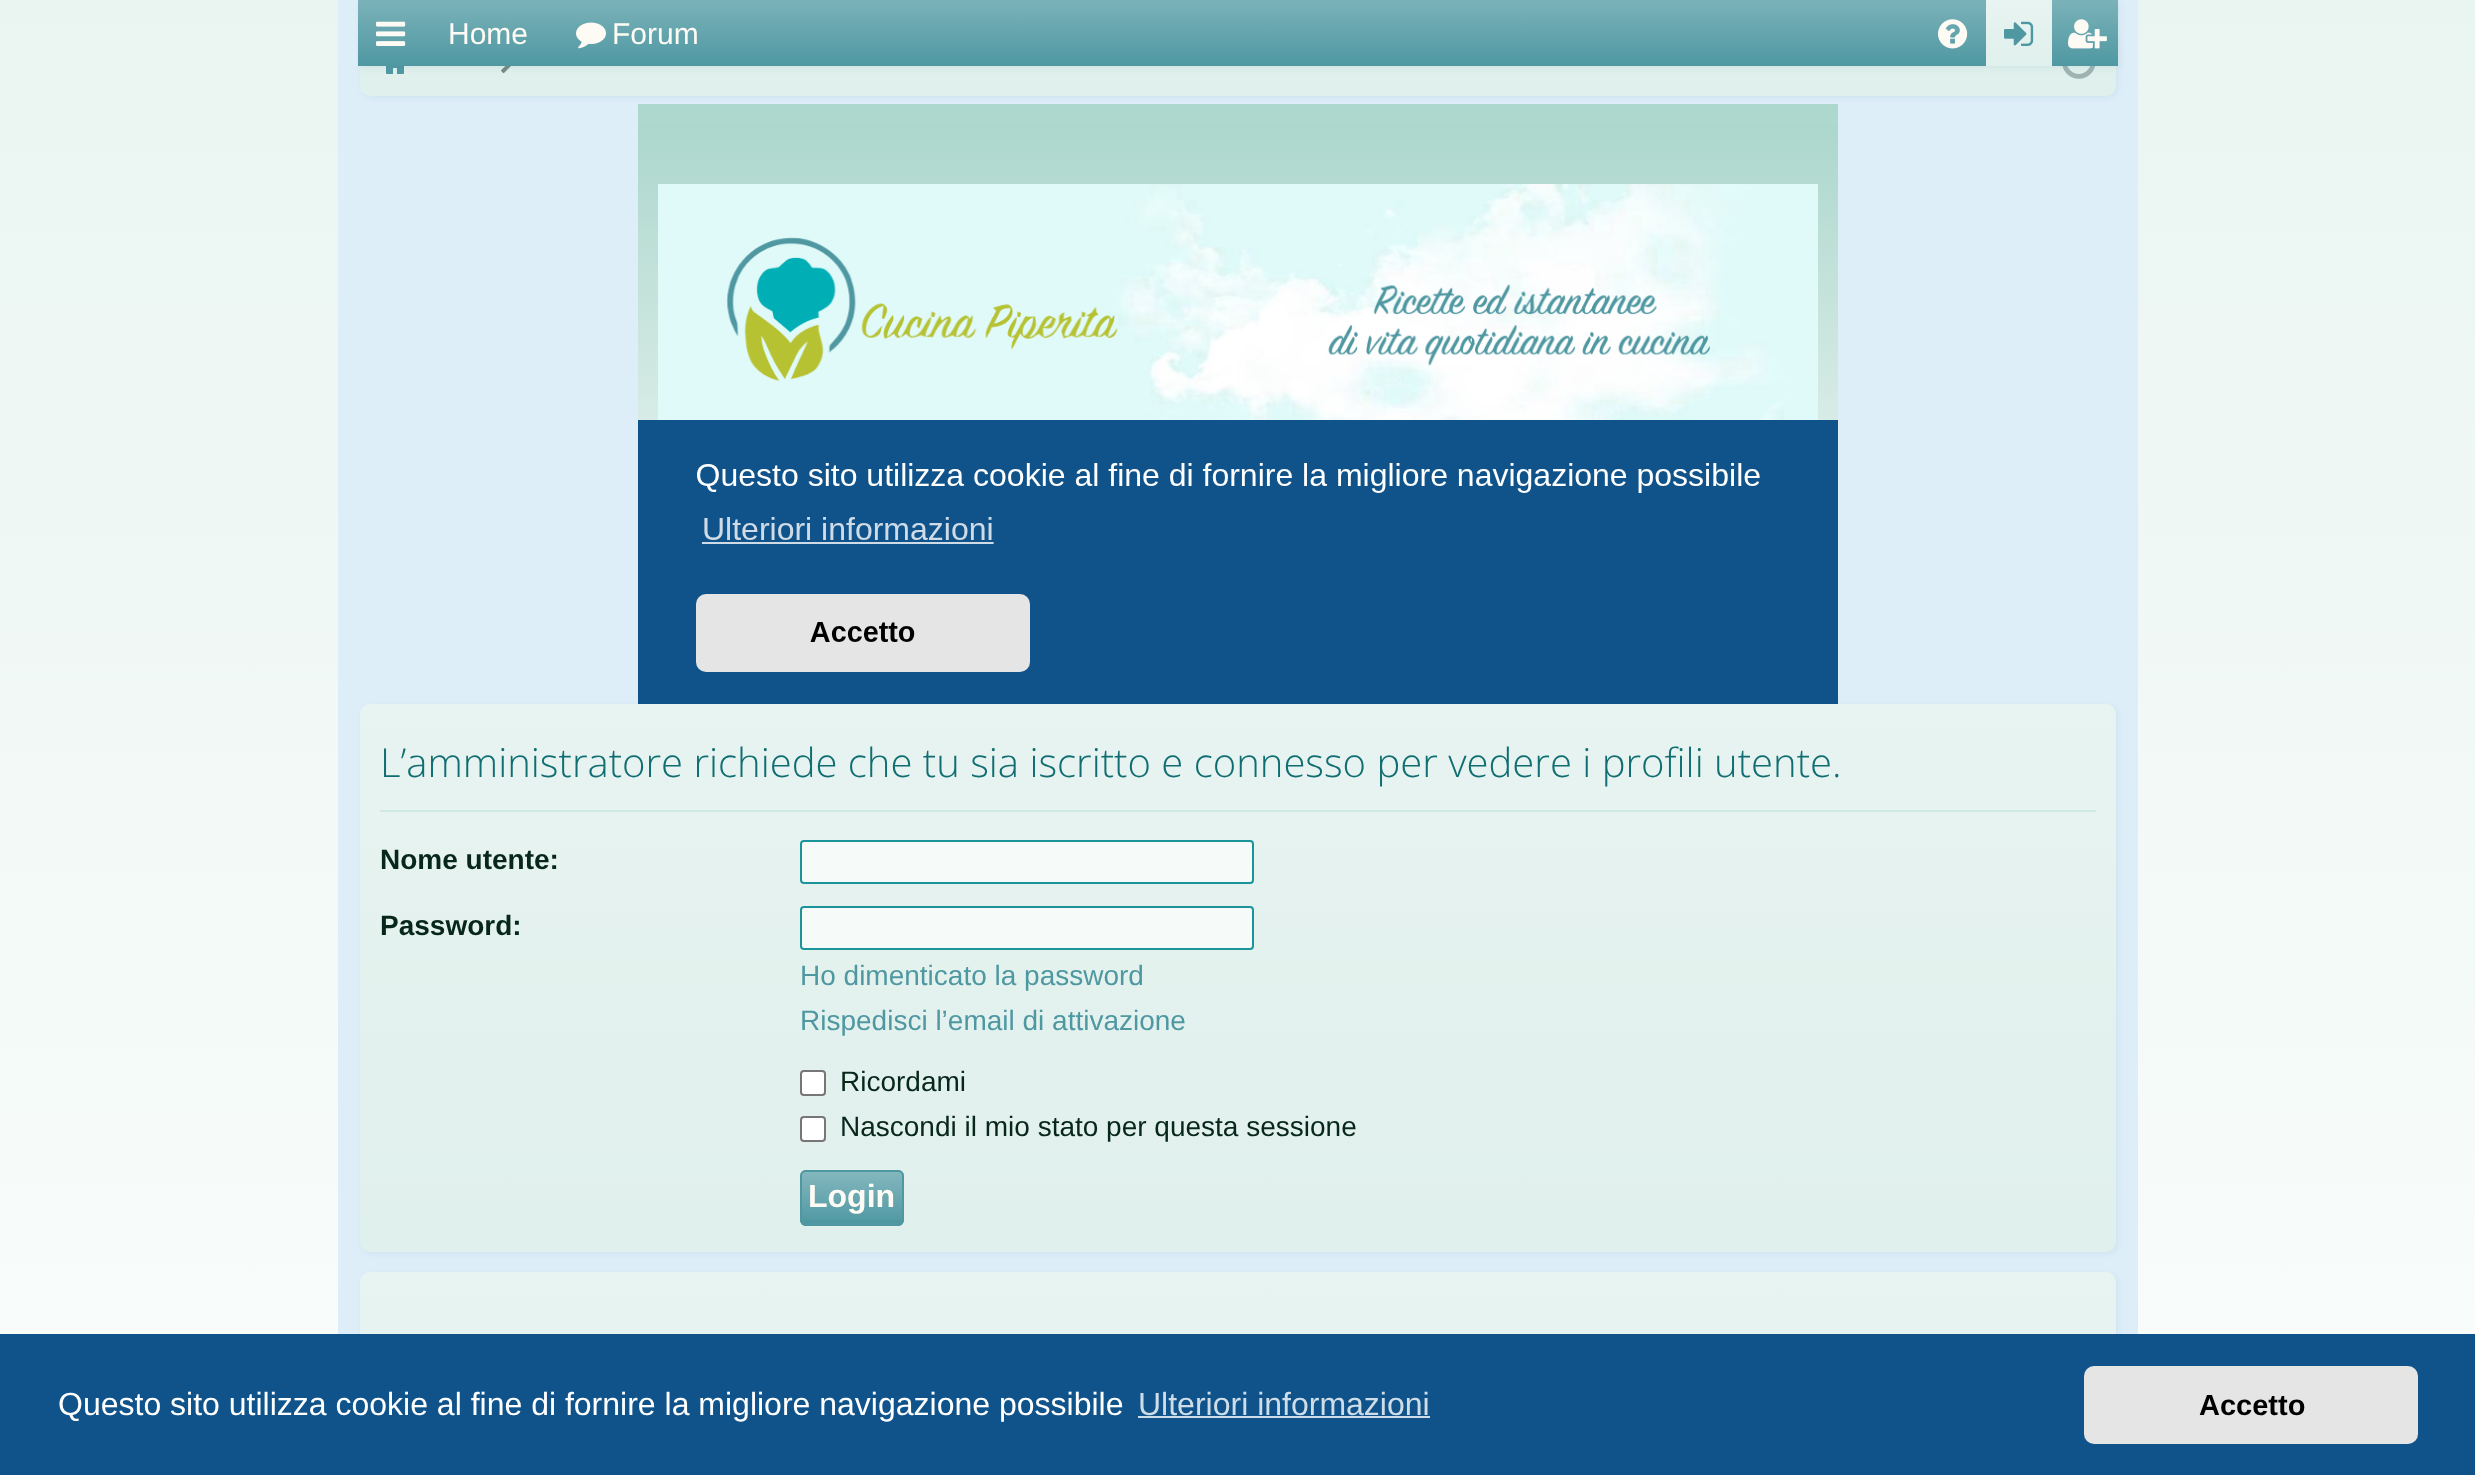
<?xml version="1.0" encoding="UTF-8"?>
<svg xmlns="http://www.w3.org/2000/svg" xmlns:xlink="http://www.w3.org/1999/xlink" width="2475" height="1475">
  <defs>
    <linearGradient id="g1" gradientUnits="userSpaceOnUse" x1="1238" y1="-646" x2="1238" y2="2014"><stop offset="0" stop-color="#acd7cc" /><stop offset="0.15" stop-color="#e7f4f0" /><stop offset="1" stop-color="#ffffff" /></linearGradient>
    <linearGradient id="g2" gradientUnits="userSpaceOnUse" x1="1238" y1="0" x2="1238" y2="66"><stop offset="0" stop-color="#7bb2b9" /><stop offset="1" stop-color="#4f98a2" /></linearGradient>
    <linearGradient id="g3" gradientUnits="userSpaceOnUse" x1="2019" y1="0" x2="2019" y2="66"><stop offset="0" stop-color="#e8f4f1" /><stop offset="1" stop-color="#e0f0ec" /></linearGradient>
    <linearGradient id="g4" gradientUnits="userSpaceOnUse" x1="1238" y1="704" x2="1238" y2="1252"><stop offset="0" stop-color="#ffffff" stop-opacity="0.25" /><stop offset="1" stop-color="#ffffff" stop-opacity="0" /></linearGradient>
    <clipPath id="clip1"><rect x="800" y="1170" width="104" height="56" rx="6" /></clipPath>
    <linearGradient id="g5" gradientUnits="userSpaceOnUse" x1="852" y1="1172" x2="852" y2="1224"><stop offset="0" stop-color="#ffffff" stop-opacity="0.3" /><stop offset="1" stop-color="#ffffff" stop-opacity="0" /></linearGradient>
    <linearGradient id="g6" gradientUnits="userSpaceOnUse" x1="1238" y1="1272" x2="1238" y2="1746"><stop offset="0" stop-color="#ffffff" stop-opacity="0.25" /><stop offset="1" stop-color="#ffffff" stop-opacity="0" /></linearGradient>
  </defs>
  <rect width="100%" height="100%" fill="#ffffff" />
  <rect width="2475" height="1334" fill="url(#g1)" />
  <rect x="338" width="1800" height="1334" fill="#deeef9" />
  <rect x="362" y="32" width="1756" height="66" rx="10" fill="#4f98a2" fill-opacity="0.1" filter="blur(3px)" />
  <rect x="360" y="30" width="1756" height="66" rx="10" fill="#e0f0ec" />
  <image x="386" y="66" width="18" height="8" xlink:href="image1.png" />
  <image x="501" y="66" width="10" height="8" xlink:href="image2.png" />
  <image x="2062" y="66" width="34" height="13" xlink:href="image3.png" />
  <rect x="360" y="2" width="1760" height="66" fill="#4f98a2" fill-opacity="0.1" filter="blur(3px)" />
  <rect x="358" width="1760" height="66" fill="url(#g2)" />
  <image x="376" y="21" width="30" height="25" xlink:href="image4.png" />
  <image x="576" y="22" width="30" height="27" xlink:href="image5.png" />
  <image x="1938" y="19" width="30" height="30" xlink:href="image6.png" />
  <rect x="1986" width="66" height="66" fill="url(#g3)" />
  <image x="2004" y="21" width="30" height="25" xlink:href="image7.png" />
  <image x="2068" y="19" width="39" height="30" xlink:href="image8.png" />
  <rect x="362" y="706" width="1756" height="548" rx="10" fill="#4f98a2" fill-opacity="0.1" filter="blur(3px)" />
  <image x="638" y="104" width="1200" height="600" xlink:href="image9.png" />
  <rect x="360" y="704" width="1756" height="548" rx="10" fill="#e0f0ec" />
  <rect x="360" y="704" width="1756" height="548" rx="10" fill="url(#g4)" />
  <rect x="380" y="810" width="1716" height="2" fill="#cfe8e1" />
  <rect x="801" y="841" width="452" height="42" rx="3" fill="#f6fbf9" stroke="#1b959a" stroke-width="2" />
  <rect x="801" y="907" width="452" height="42" rx="3" fill="#f6fbf9" stroke="#1b959a" stroke-width="2" />
  <rect x="801" y="1071" width="24" height="24" rx="3" fill="#ffffff" stroke="#767676" stroke-width="2" />
  <rect x="801" y="1117" width="24" height="24" rx="3" fill="#ffffff" stroke="#767676" stroke-width="2" />
  <rect x="800" y="1170" width="104" height="56" rx="6" fill="#4f98a2" />
  <g clip-path="url(#clip1)">
    <rect x="800" y="1172" width="104" height="48" fill="url(#g5)" />
  </g>
  <rect x="801" y="1171" width="102" height="54" rx="5" fill="none" stroke="#4f98a2" stroke-width="2" />
  <rect x="362" y="1274" width="1756" height="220" rx="10" fill="#4f98a2" fill-opacity="0.1" filter="blur(3px)" />
  <rect x="360" y="1272" width="1756" height="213" rx="10" fill="#e0f0ec" />
  <rect x="360" y="1272" width="1756" height="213" rx="10" fill="url(#g6)" />
  <rect y="1334" width="2475" height="141" fill="#0f538a" />
  <rect x="1138" y="1416" width="292" height="2" fill="#cfdde8" />
  <rect x="2084" y="1366" width="334" height="78" rx="10" fill="#e5e5e5" />
  <text x="448" y="44" style="font-family: Liberation Sans; font-size: 30px; fill: #fefbf5">Home</text>
  <text x="612" y="44" style="font-family: Liberation Sans; font-size: 30px; fill: #fefbf5">Forum</text>
  <text x="380" y="777" style="font-family: Open Sans; font-size: 40px; font-weight: 300; fill: #106e72">L’amministratore richiede che tu sia iscritto e connesso per vedere i profili utente.</text>
  <text x="380" y="869" style="font-family: Liberation Sans; font-size: 28px; font-weight: bold; fill: #08271b">Nome utente:</text>
  <text x="380" y="935" style="font-family: Liberation Sans; font-size: 28px; font-weight: bold; fill: #08271b">Password:</text>
  <text x="800" y="985" style="font-family: Liberation Sans; font-size: 28px; fill: #4f98a2">Ho dimenticato la password</text>
  <text x="800" y="1030" style="font-family: Liberation Sans; font-size: 28px; fill: #4f98a2">Rispedisci l’email di attivazione</text>
  <text x="840" y="1091" style="font-family: Liberation Sans; font-size: 28px; fill: #08271b">Ricordami</text>
  <text x="840" y="1136" style="font-family: Liberation Sans; font-size: 28px; fill: #08271b">Nascondi il mio stato per questa sessione</text>
  <text x="808" y="1207" style="font-family: Liberation Sans; font-size: 32px; font-weight: bold; fill: #fefbf5">Login</text>
  <text x="58" y="1415" style="font-family: Liberation Sans; font-size: 32px; fill: #ffffff">Questo sito utilizza cookie al fine di fornire la migliore navigazione possibile</text>
  <text x="1138" y="1415" style="font-family: Liberation Sans; font-size: 32px; fill: #cfdde8">Ulteriori informazioni</text>
  <text x="2199" y="1415" style="font-family: Liberation Sans; font-size: 29px; font-weight: bold; fill: #000000">Accetto</text>
</svg>
